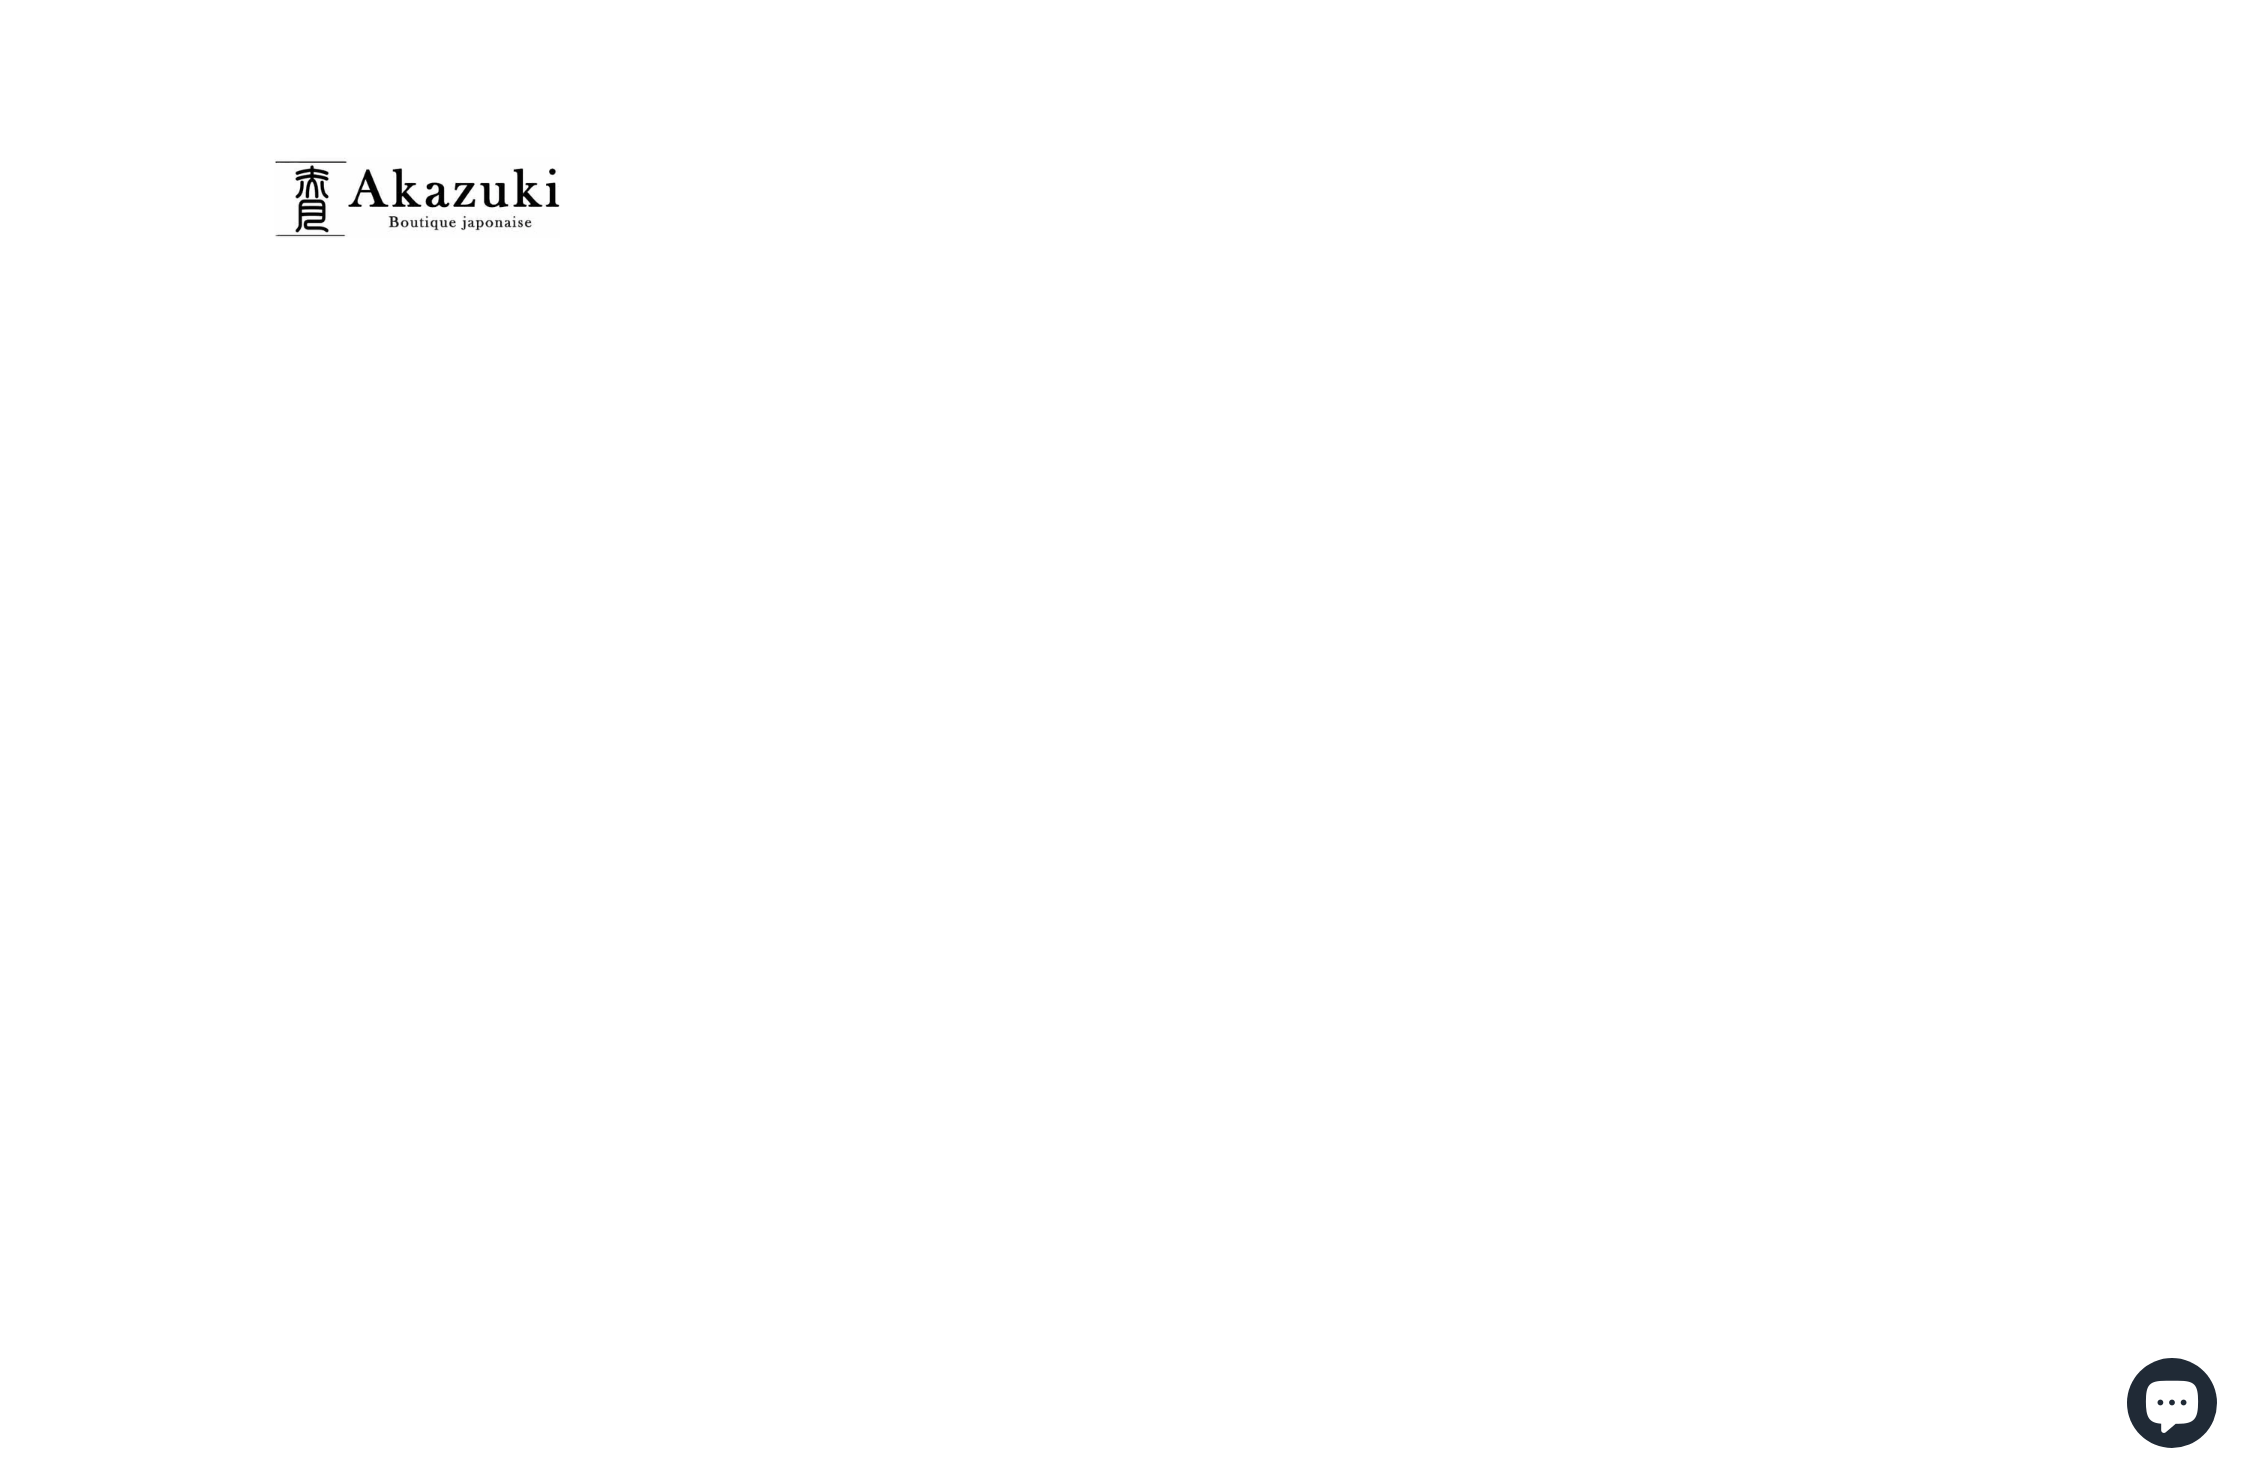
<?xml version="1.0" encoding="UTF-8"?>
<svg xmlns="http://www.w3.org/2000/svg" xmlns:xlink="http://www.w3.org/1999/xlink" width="2249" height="1479">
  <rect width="100%" height="100%" fill="#ffffff" />
  <image x="274" y="157" width="286" height="81" xlink:href="image1.png" />
  <circle cx="2172" cy="1403" r="45" fill="#202a36" />
  <image x="2145" y="1380" width="54" height="53" xlink:href="image2.png" />
</svg>
